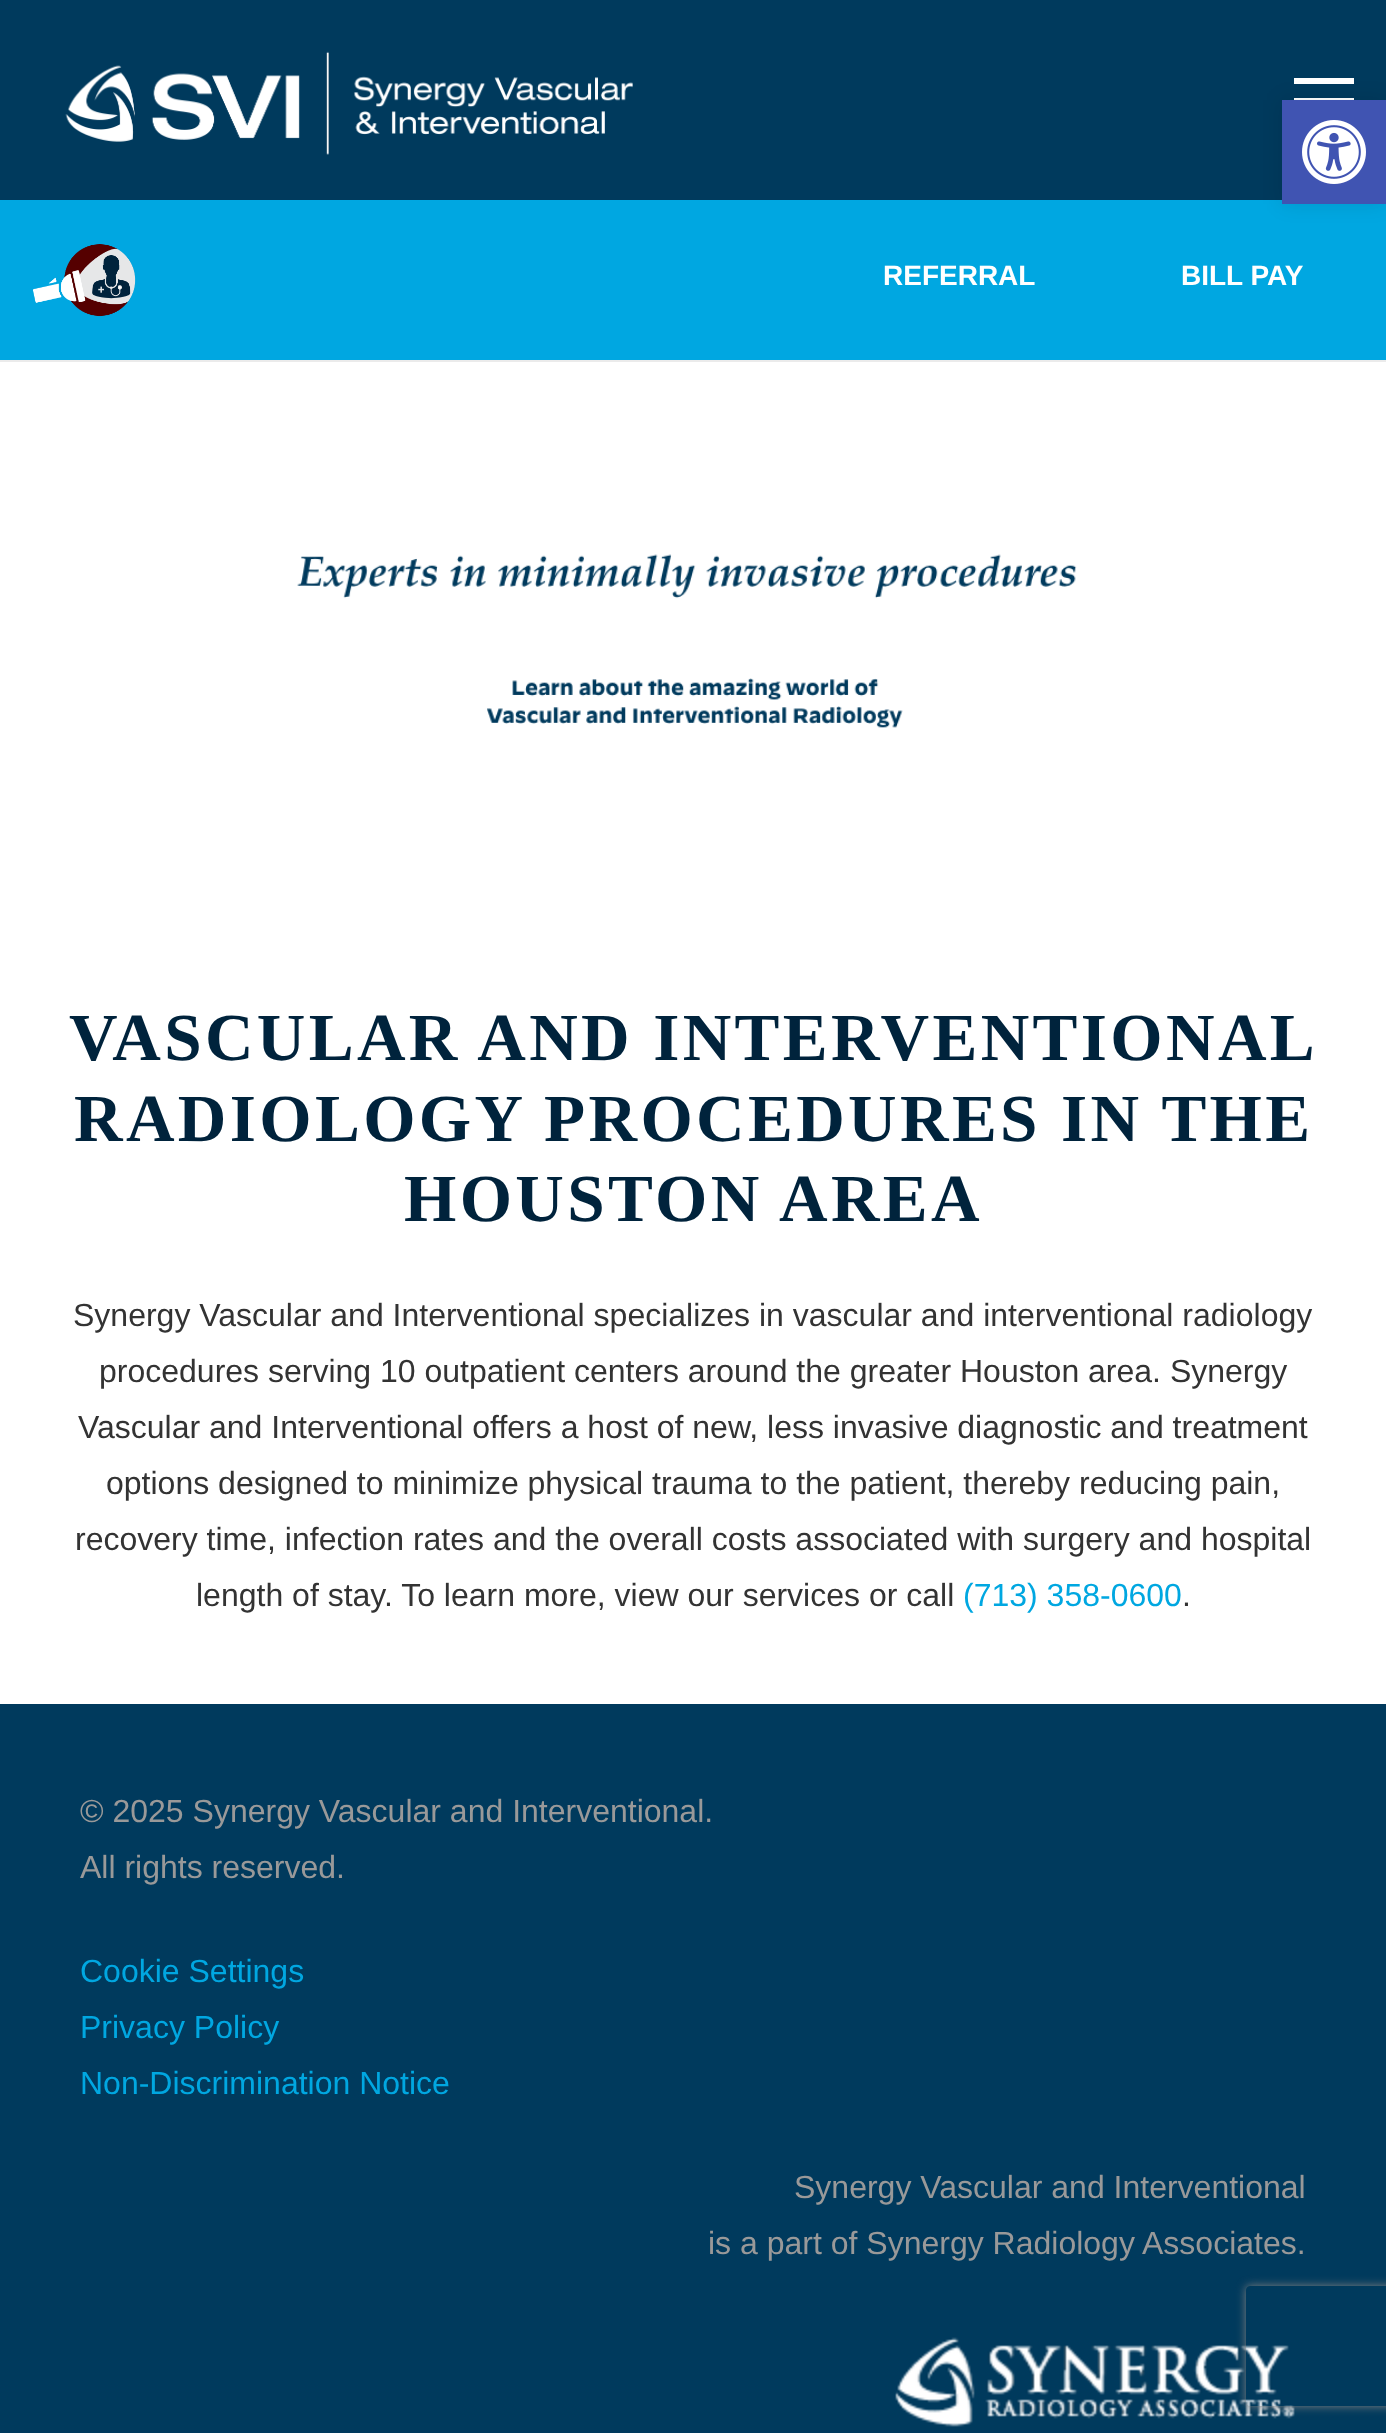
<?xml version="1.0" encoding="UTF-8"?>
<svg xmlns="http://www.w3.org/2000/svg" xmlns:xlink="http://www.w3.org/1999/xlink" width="1386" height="2433">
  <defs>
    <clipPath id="clip1"><path d="M 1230 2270 h 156 v 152 h -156 z m 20 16 h 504 c 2 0 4 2 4 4 v 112 c 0 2 -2 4 -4 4 h -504 c -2 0 -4 -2 -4 -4 v -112 c 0 -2 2 -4 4 -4 z" clip-rule="evenodd" /></clipPath>
  </defs>
  <rect width="100%" height="100%" fill="#ffffff" />
  <rect width="1386" height="200" fill="#003a5d" />
  <rect x="1294" y="98" width="60" height="2" fill="#ffffff" />
  <rect x="1294" y="78" width="60" height="6" fill="#ffffff" />
  <rect y="200" width="1386" height="160" fill="#00a7e1" />
  <rect x="1282" y="100" width="104" height="104" fill="#000000" fill-opacity="0.1" filter="blur(10px)" />
  <rect x="1282" y="100" width="104" height="104" fill="#4054b2" />
  <image x="1302" y="120" width="64" height="64" xlink:href="image1.png" />
  <image x="65" y="51" width="568" height="104" xlink:href="image2.png" />
  <rect y="360" width="1386" height="2" fill="#ebebeb" />
  <image x="32" y="244" width="104" height="73" xlink:href="image3.png" />
  <image x="297" y="554" width="780" height="174" xlink:href="image4.png" />
  <rect y="1704" width="1386" height="729" fill="#003a5d" />
  <image x="895" y="2337" width="400" height="90" xlink:href="image5.png" />
  <g clip-path="url(#clip1)">
    <rect x="1246" y="2286" width="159" height="120" rx="4" fill="#808080" filter="blur(5px)" />
  </g>
  <text x="883" y="285" style="font-family: Liberation Sans; font-size: 28px; font-weight: bold; fill: #ffffff">REFERRAL</text>
  <text x="1181" y="285" style="font-family: Liberation Sans; font-size: 28px; font-weight: bold; fill: #ffffff">BILL PAY</text>
  <text x="69" y="1060" style="font-family: Liberation Serif; font-size: 67.25px; font-weight: bold; letter-spacing: 3.35px; fill: #00233c">VASCULAR AND INTERVENTIONAL</text>
  <text x="74" y="1141" style="font-family: Liberation Serif; font-size: 67.25px; font-weight: bold; letter-spacing: 3.35px; fill: #00233c">RADIOLOGY PROCEDURES IN THE</text>
  <text x="404" y="1221" style="font-family: Liberation Serif; font-size: 67.25px; font-weight: bold; letter-spacing: 3.35px; fill: #00233c">HOUSTON AREA</text>
  <text x="73" y="1326" style="font-family: Liberation Sans; font-size: 32px; fill: #333333">Synergy Vascular and Interventional specializes in vascular and interventional radiology</text>
  <text x="99" y="1382" style="font-family: Liberation Sans; font-size: 32px; fill: #333333">procedures serving 10 outpatient centers around the greater Houston area. Synergy</text>
  <text x="78" y="1438" style="font-family: Liberation Sans; font-size: 32px; fill: #333333">Vascular and Interventional offers a host of new, less invasive diagnostic and treatment</text>
  <text x="106" y="1494" style="font-family: Liberation Sans; font-size: 32px; fill: #333333">options designed to minimize physical trauma to the patient, thereby reducing pain,</text>
  <text x="75" y="1550" style="font-family: Liberation Sans; font-size: 32px; fill: #333333">recovery time, infection rates and the overall costs associated with surgery and hospital</text>
  <text x="196" y="1606" style="font-family: Liberation Sans; font-size: 32px; fill: #333333">length of stay. To learn more, view our services or call</text>
  <text x="963" y="1606" style="font-family: Liberation Sans; font-size: 32px; fill: #00a7e1">(713) 358-0600</text>
  <text x="1182" y="1606" style="font-family: Liberation Sans; font-size: 32px; fill: #333333">.</text>
  <text x="80" y="1822" style="font-family: Liberation Sans; font-size: 32px; fill: #999999">© 2025 Synergy Vascular and Interventional.</text>
  <text x="80" y="1878" style="font-family: Liberation Sans; font-size: 32px; fill: #999999">All rights reserved.</text>
  <text x="80" y="1982" style="font-family: Liberation Sans; font-size: 32px; fill: #00a7e1">Cookie Settings</text>
  <text x="80" y="2038" style="font-family: Liberation Sans; font-size: 32px; fill: #00a7e1">Privacy Policy</text>
  <text x="80" y="2094" style="font-family: Liberation Sans; font-size: 32px; fill: #00a7e1">Non-Discrimination Notice</text>
  <text x="794" y="2198" style="font-family: Liberation Sans; font-size: 32px; fill: #999999">Synergy Vascular and Interventional</text>
  <text x="708" y="2254" style="font-family: Liberation Sans; font-size: 32px; fill: #999999">is a part of Synergy Radiology Associates.</text>
</svg>
